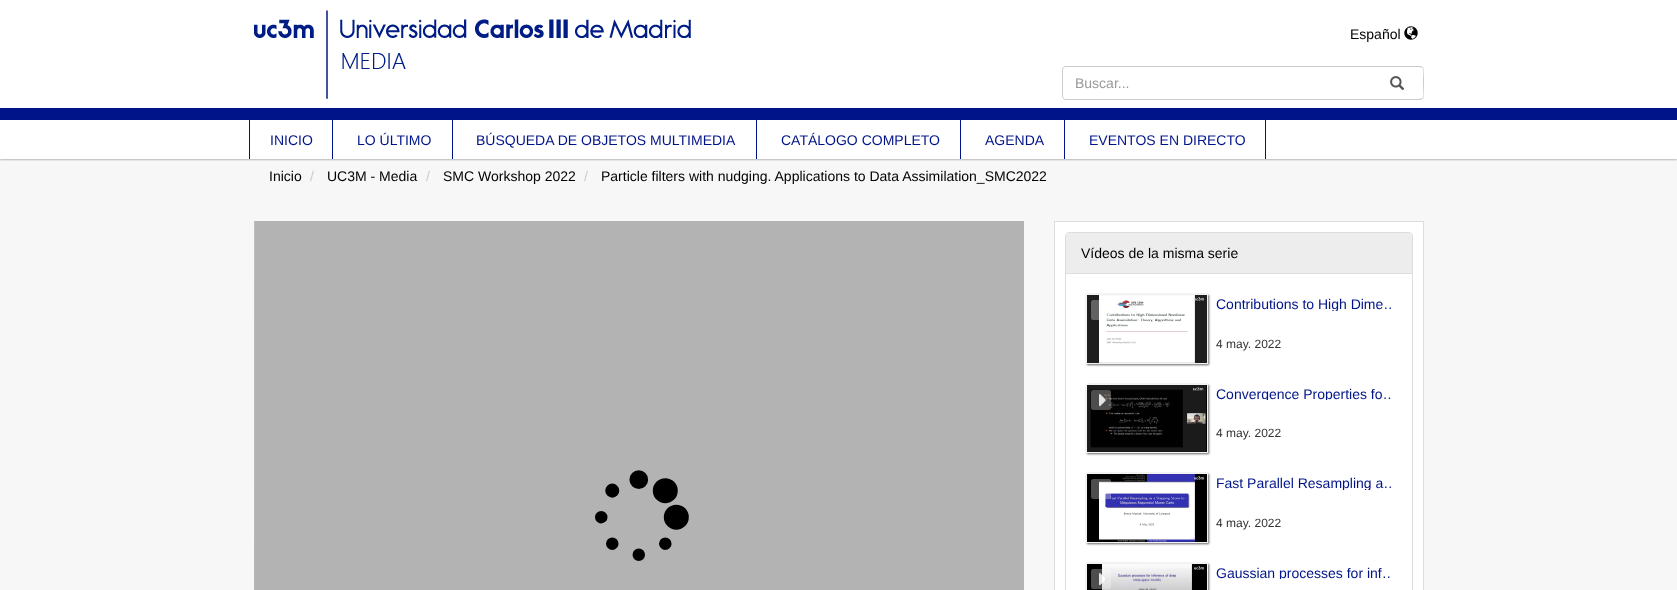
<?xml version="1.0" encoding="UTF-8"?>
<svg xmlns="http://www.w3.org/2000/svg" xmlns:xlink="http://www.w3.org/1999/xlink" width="1677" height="590">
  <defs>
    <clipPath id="clip1"><rect x="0" y="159" width="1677" height="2" /></clipPath>
    <clipPath id="clip2"><rect x="1216" y="294" width="176" height="17" /></clipPath>
    <clipPath id="clip3"><rect x="1216" y="384" width="176" height="16" /></clipPath>
    <clipPath id="clip4"><rect x="1216" y="473" width="176" height="17" /></clipPath>
    <clipPath id="clip5"><rect x="1216" y="563" width="176" height="16" /></clipPath>
  </defs>
  <rect width="100%" height="100%" fill="#ffffff" />
  <image x="254" y="10" width="437" height="89" xlink:href="image1.png" />
  <image x="1404" y="26" width="14" height="14" xlink:href="image2.png" />
  <path d="M 1066 66 h 306 v 34 h -306 c -2 0 -4 -2 -4 -4 v -26 c 0 -2 2 -4 4 -4 z m 0 1 h 306 v 32 h -306 c -2 0 -3 -1 -3 -3 v -26 c 0 -2 1 -3 3 -3 z" fill="#cccccc" fill-rule="evenodd" />
  <path d="M 1372 66 h 48 c 2 0 4 2 4 4 v 26 c 0 2 -2 4 -4 4 h -48 z m 0 1 h 40 c 15 0 11 0 11 16 c 0 16 4 16 -11 16 h -40 z" fill="#cccccc" fill-rule="evenodd" />
  <image x="1390" y="76" width="15" height="14" xlink:href="image3.png" />
  <rect x="-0.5" y="119.5" width="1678" height="40" fill="none" stroke="#ebebeb" />
  <g clip-path="url(#clip1)">
    <rect y="122" width="1677" height="39" fill="#000000" fill-opacity="0.16" filter="blur(1px)" />
  </g>
  <rect y="108" width="1677" height="12" fill="#001489" />
  <rect x="332" y="120" width="1" height="39" fill="#001489" />
  <rect x="249" y="120" width="1" height="39" fill="#001489" />
  <rect x="452" y="120" width="1" height="39" fill="#001489" />
  <rect x="756" y="120" width="1" height="39" fill="#001489" />
  <rect x="960" y="120" width="1" height="39" fill="#001489" />
  <rect x="1064" y="120" width="1" height="39" fill="#001489" />
  <rect x="1265" y="120" width="1" height="39" fill="#001489" />
  <rect y="161" width="1677" height="429" fill="#f7f7f7" />
  <image x="254" y="221" width="770" height="369" xlink:href="image4.png" />
  <rect x="1054.5" y="221.5" width="369" height="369" fill="#ffffff" stroke="#dddddd" />
  <rect x="1065.5" y="232.5" width="347" height="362" rx="3.5" fill="none" stroke="#dddddd" />
  <path d="M 1069 233 h 340 c 1.5 0 3 1.5 3 3 v 38 h -346 v -38 c 0 -1.5 1.5 -3 3 -3 z" fill="#ededed" />
  <rect x="1066" y="273" width="346" height="1" fill="#dddddd" />
  <rect x="1087" y="295" width="122" height="70" fill="#666666" filter="blur(1px)" />
  <rect x="1086" y="294" width="122" height="70" fill="#f3f3f3" />
  <image x="1087" y="295" width="120" height="68" xlink:href="image5.png" />
  <image x="1091" y="300" width="20" height="20" xlink:href="image6.png" />
  <rect x="1087" y="385" width="122" height="69" fill="#666666" filter="blur(1px)" />
  <rect x="1086" y="384" width="122" height="69" fill="#f3f3f3" />
  <image x="1087" y="385" width="119" height="67" xlink:href="image7.png" />
  <rect x="1206" y="385" width="1" height="67" fill="#000000" />
  <image x="1091" y="390" width="20" height="20" xlink:href="image8.png" />
  <rect x="1087" y="474" width="122" height="70" fill="#666666" filter="blur(1px)" />
  <rect x="1086" y="473" width="122" height="70" fill="#f3f3f3" />
  <rect x="1087" y="474" width="120" height="68" fill="#000000" />
  <image x="1099" y="474" width="106" height="68" xlink:href="image9.png" />
  <image x="1091" y="479" width="20" height="20" xlink:href="image10.png" />
  <rect x="1087" y="564" width="122" height="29" fill="#666666" filter="blur(1px)" />
  <rect x="1086" y="563" width="122" height="27" fill="#f3f3f3" />
  <rect x="1087" y="564" width="120" height="26" fill="#000000" />
  <image x="1102" y="564" width="103" height="26" xlink:href="image12.png" />
  <image x="1091" y="569" width="20" height="20" xlink:href="image11.png" />
  <text x="1350" y="39" style="font-family: Liberation Sans; font-size: 14px; fill: #000000">Español</text>
  <text x="1075" y="88" style="font-family: Liberation Sans; font-size: 14px; fill: #999999">Buscar...</text>
  <text x="270" y="145" style="font-family: Liberation Sans; font-size: 14px; fill: #001489">INICIO</text>
  <text x="357" y="145" style="font-family: Liberation Sans; font-size: 14px; fill: #001489">LO ÚLTIMO</text>
  <text x="476" y="145" style="font-family: Liberation Sans; font-size: 14px; fill: #001489">BÚSQUEDA DE OBJETOS MULTIMEDIA</text>
  <text x="781" y="145" style="font-family: Liberation Sans; font-size: 14px; fill: #001489">CATÁLOGO COMPLETO</text>
  <text x="985" y="145" style="font-family: Liberation Sans; font-size: 14px; fill: #001489">AGENDA</text>
  <text x="1089" y="145" style="font-family: Liberation Sans; font-size: 14px; fill: #001489">EVENTOS EN DIRECTO</text>
  <text x="269" y="181" style="font-family: Liberation Sans; font-size: 14px; fill: #000000">Inicio</text>
  <text x="310" y="181" style="font-family: Liberation Sans; font-size: 14px; fill: #cccccc">/</text>
  <text x="327" y="181" style="font-family: Liberation Sans; font-size: 14px; fill: #000000">UC3M - Media</text>
  <text x="426" y="181" style="font-family: Liberation Sans; font-size: 14px; fill: #cccccc">/</text>
  <text x="443" y="181" style="font-family: Liberation Sans; font-size: 14px; fill: #000000">SMC Workshop 2022</text>
  <text x="584" y="181" style="font-family: Liberation Sans; font-size: 14px; fill: #cccccc">/</text>
  <text x="601" y="181" style="font-family: Liberation Sans; font-size: 14px; fill: #000000">Particle filters with nudging. Applications to Data Assimilation_SMC2022</text>
  <text x="1081" y="258" style="font-family: Liberation Sans; font-size: 14px; fill: #000000">Vídeos de la misma serie</text>
  <g clip-path="url(#clip2)">
    <text x="1216" y="309" style="font-family: Liberation Sans; font-size: 14px; fill: #001489">Contributions to High Dime…</text>
  </g>
  <text x="1216" y="348" style="font-family: Liberation Sans; font-size: 12px; fill: #333333">4 may. 2022</text>
  <g clip-path="url(#clip3)">
    <text x="1216" y="399" style="font-family: Liberation Sans; font-size: 14px; fill: #001489">Convergence Properties fo…</text>
  </g>
  <text x="1216" y="437" style="font-family: Liberation Sans; font-size: 12px; fill: #333333">4 may. 2022</text>
  <g clip-path="url(#clip4)">
    <text x="1216" y="488" style="font-family: Liberation Sans; font-size: 14px; fill: #001489">Fast Parallel Resampling a…</text>
  </g>
  <text x="1216" y="527" style="font-family: Liberation Sans; font-size: 12px; fill: #333333">4 may. 2022</text>
  <g clip-path="url(#clip5)">
    <text x="1216" y="578" style="font-family: Liberation Sans; font-size: 14px; fill: #001489">Gaussian processes for inf…</text>
  </g>
</svg>
